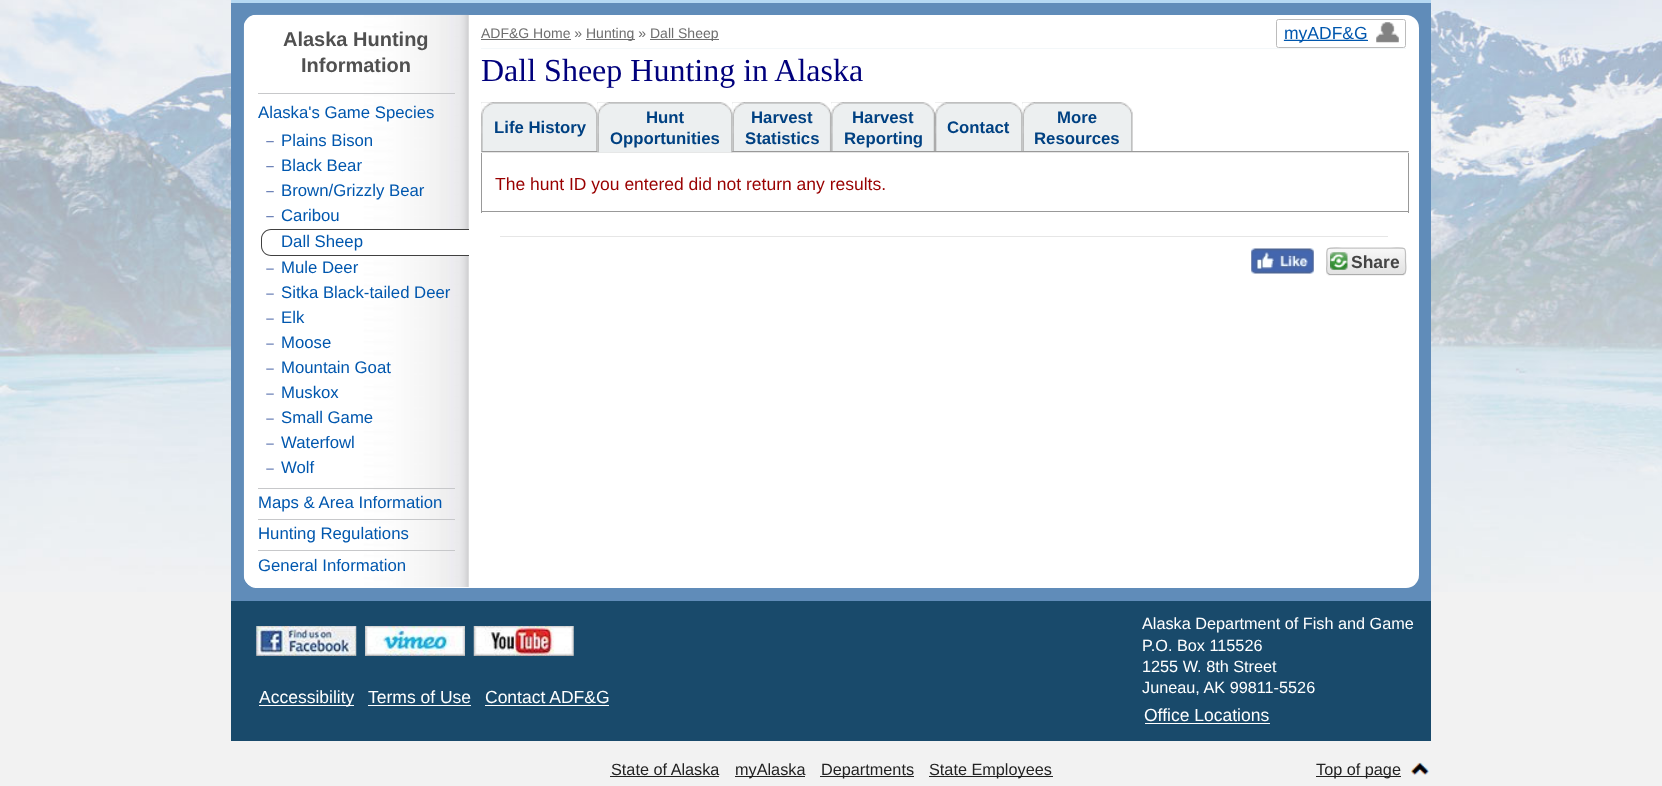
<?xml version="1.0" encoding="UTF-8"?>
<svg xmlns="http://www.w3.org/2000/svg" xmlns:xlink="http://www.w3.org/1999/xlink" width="1662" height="786">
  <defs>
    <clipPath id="clip1"><rect x="1326" y="248" width="80" height="27" rx="4" /></clipPath>
    <linearGradient id="g1" gradientUnits="userSpaceOnUse" x1="1366" y1="224" x2="1366" y2="249"><stop offset="0" stop-color="#f7f7f7" /><stop offset="1" stop-color="#e2e2e2" /></linearGradient>
    <linearGradient id="g2" gradientUnits="userSpaceOnUse" x1="1366" y1="249" x2="1366" y2="274"><stop offset="0" stop-color="#f7f7f7" /><stop offset="1" stop-color="#e2e2e2" /></linearGradient>
    <linearGradient id="g3" gradientUnits="userSpaceOnUse" x1="1366" y1="274" x2="1366" y2="299"><stop offset="0" stop-color="#f7f7f7" /><stop offset="1" stop-color="#e2e2e2" /></linearGradient>
  </defs>
  <rect width="100%" height="100%" fill="#f2f2f2" />
  <image x="0" y="0" width="1662" height="592" xlink:href="image1.png" />
  <rect x="231" width="1200" height="3" fill="#b5d8f2" />
  <rect x="231" y="3" width="1200" height="598" fill="#608cb9" />
  <rect x="244" y="15" width="1175" height="573" rx="13" fill="#ffffff" />
  <image x="243" y="14" width="226" height="573" xlink:href="image2.png" />
  <rect x="258" y="93" width="197" height="1" fill="#c7c8ca" />
  <image x="266" y="141" width="8" height="2" xlink:href="image3.png" />
  <image x="266" y="166" width="8" height="2" xlink:href="image3.png" />
  <image x="266" y="191" width="8" height="2" xlink:href="image3.png" />
  <image x="266" y="216" width="8" height="2" xlink:href="image3.png" />
  <path d="M 272 230 h 197 v 25 h -197 c -5 0 -9 -4 -9 -9 v -7 c 0 -5 4 -9 9 -9 z" fill="#ffffff" />
  <path d="M 271 229 h 198 v 27 h -198 c -5 0 -10 -4 -10 -10 v -7 c 0 -6 5 -10 10 -10 z m 0 1 h 198 v 25 h -198 c -5 0 -9 -4 -9 -9 v -7 c 0 -5 4 -9 9 -9 z" fill="#404040" fill-rule="evenodd" />
  <image x="266" y="268" width="8" height="2" xlink:href="image4.png" />
  <image x="266" y="293" width="8" height="2" xlink:href="image4.png" />
  <image x="266" y="318" width="8" height="2" xlink:href="image4.png" />
  <image x="266" y="343" width="8" height="2" xlink:href="image4.png" />
  <image x="266" y="368" width="8" height="2" xlink:href="image4.png" />
  <image x="266" y="393" width="8" height="2" xlink:href="image4.png" />
  <image x="266" y="418" width="8" height="2" xlink:href="image4.png" />
  <image x="266" y="443" width="8" height="2" xlink:href="image4.png" />
  <image x="266" y="468" width="8" height="2" xlink:href="image4.png" />
  <rect x="258" y="488" width="197" height="1" fill="#c7c8ca" />
  <rect x="258" y="519" width="197" height="1" fill="#c7c8ca" />
  <rect x="258" y="550" width="197" height="1" fill="#c7c8ca" />
  <rect x="481" y="48" width="925" height="1" fill="#f3f7f9" />
  <rect x="481" y="39" width="90" height="1" fill="#6e6e6e" />
  <rect x="586" y="39" width="49" height="1" fill="#6e6e6e" />
  <rect x="650" y="39" width="69" height="1" fill="#6e6e6e" />
  <rect x="1276.5" y="19.5" width="129" height="28" rx="2" fill="none" stroke="#bcbcbc" />
  <image x="1283" y="22" width="116" height="21" xlink:href="image5.png" />
  <rect x="1300" y="40" width="68" height="1" fill="#0057ae" />
  <image x="481" y="151" width="928" height="2" xlink:href="image6.png" />
  <image x="481" y="102" width="117" height="49" xlink:href="image7.png" />
  <image x="481" y="102" width="13" height="49" xlink:href="image8.png" />
  <image x="597" y="102" width="136" height="51" xlink:href="image9.png" />
  <image x="597" y="102" width="13" height="51" xlink:href="image10.png" />
  <image x="732" y="102" width="100" height="49" xlink:href="image11.png" />
  <image x="732" y="102" width="13" height="49" xlink:href="image12.png" />
  <image x="831" y="102" width="104" height="49" xlink:href="image13.png" />
  <image x="831" y="102" width="13" height="49" xlink:href="image14.png" />
  <image x="935" y="102" width="88" height="49" xlink:href="image15.png" />
  <image x="935" y="102" width="12" height="49" xlink:href="image16.png" />
  <image x="1022" y="102" width="111" height="49" xlink:href="image17.png" />
  <image x="1022" y="102" width="13" height="49" xlink:href="image18.png" />
  <rect x="1408" y="153" width="1" height="60" fill="#999999" />
  <rect x="481" y="211" width="928" height="1" fill="#999999" />
  <rect x="481" y="153" width="1" height="60" fill="#999999" />
  <rect x="500" y="236" width="888" height="1" fill="#e6e6e6" />
  <image x="1251" y="248" width="63" height="26" xlink:href="image19.png" />
  <rect x="1326" y="249" width="80" height="27" rx="4" fill="#000000" fill-opacity="0.05" filter="blur(0.5px)" />
  <g clip-path="url(#clip1)">
    <rect x="1326" y="248" width="80" height="1" fill="url(#g1)" />
    <rect x="1326" y="249" width="80" height="25" fill="url(#g2)" />
    <rect x="1326" y="274" width="80" height="1" fill="url(#g3)" />
  </g>
  <path d="M 1404.5 273.5 l -1.5 1 h -73.5 l -1.5 -1" fill="none" stroke="#999999" stroke-opacity="0.8" stroke-width="1.2" />
  <path d="M 1328 273.5 c -2.5 -2 -1 -6.5 -1 -9 c 0 -18.5 -3.5 -16.5 15 -16.5 h 48.5 c 17 0 15 -2.5 15 13 c 0 3 1.5 10.5 -1 12.5" fill="none" stroke="#b3b3b3" stroke-opacity="0.8" stroke-width="1.2" />
  <image x="1330" y="252" width="18" height="18" xlink:href="image20.png" />
  <rect x="231" y="601" width="1200" height="140" fill="#194a6b" />
  <image x="256" y="626" width="101" height="30" xlink:href="image21.png" />
  <image x="365" y="626" width="100" height="30" xlink:href="image22.png" />
  <image x="473" y="626" width="101" height="30" xlink:href="image23.png" />
  <rect x="259" y="705" width="95" height="1" fill="#ffffff" />
  <rect x="368" y="705" width="103" height="1" fill="#ffffff" />
  <rect x="485" y="705" width="124" height="1" fill="#ffffff" />
  <rect x="1145" y="723" width="125" height="1" fill="#ffffff" />
  <rect x="610" y="776" width="109" height="1" fill="#222222" />
  <rect x="735" y="776" width="70" height="1" fill="#222222" />
  <rect x="820" y="776" width="94" height="1" fill="#222222" />
  <rect x="929" y="776" width="124" height="1" fill="#222222" />
  <rect x="1316" y="776" width="85" height="1" fill="#222222" />
  <image x="1411" y="762" width="18" height="13" xlink:href="image24.png" />
  <text x="283" y="46" style="font-family: Liberation Sans; font-size: 20px; font-weight: bold; fill: #505050">Alaska Hunting</text>
  <text x="301" y="72" style="font-family: Liberation Sans; font-size: 20px; font-weight: bold; fill: #505050">Information</text>
  <text x="258" y="118" style="font-family: Liberation Sans; font-size: 16.75px; fill: #0057ae">Alaska's Game Species</text>
  <text x="281" y="146" style="font-family: Liberation Sans; font-size: 16.75px; fill: #0057ae">Plains Bison</text>
  <text x="281" y="171" style="font-family: Liberation Sans; font-size: 16.75px; fill: #0057ae">Black Bear</text>
  <text x="281" y="196" style="font-family: Liberation Sans; font-size: 16.75px; fill: #0057ae">Brown/Grizzly Bear</text>
  <text x="281" y="221" style="font-family: Liberation Sans; font-size: 16.75px; fill: #0057ae">Caribou</text>
  <text x="281" y="247" style="font-family: Liberation Sans; font-size: 16.75px; fill: #0057ae">Dall Sheep</text>
  <text x="281" y="273" style="font-family: Liberation Sans; font-size: 16.75px; fill: #0057ae">Mule Deer</text>
  <text x="281" y="298" style="font-family: Liberation Sans; font-size: 16.75px; fill: #0057ae">Sitka Black-tailed Deer</text>
  <text x="281" y="323" style="font-family: Liberation Sans; font-size: 16.75px; fill: #0057ae">Elk</text>
  <text x="281" y="348" style="font-family: Liberation Sans; font-size: 16.75px; fill: #0057ae">Moose</text>
  <text x="281" y="373" style="font-family: Liberation Sans; font-size: 16.75px; fill: #0057ae">Mountain Goat</text>
  <text x="281" y="398" style="font-family: Liberation Sans; font-size: 16.75px; fill: #0057ae">Muskox</text>
  <text x="281" y="423" style="font-family: Liberation Sans; font-size: 16.75px; fill: #0057ae">Small Game</text>
  <text x="281" y="448" style="font-family: Liberation Sans; font-size: 16.75px; fill: #0057ae">Waterfowl</text>
  <text x="281" y="473" style="font-family: Liberation Sans; font-size: 16.75px; fill: #0057ae">Wolf</text>
  <text x="258" y="508" style="font-family: Liberation Sans; font-size: 16.75px; fill: #0057ae">Maps &amp; Area Information</text>
  <text x="258" y="539" style="font-family: Liberation Sans; font-size: 16.75px; fill: #0057ae">Hunting Regulations</text>
  <text x="258" y="571" style="font-family: Liberation Sans; font-size: 16.75px; fill: #0057ae">General Information</text>
  <text x="481" y="38" style="font-family: Liberation Sans; font-size: 14px; fill: #6e6e6e">ADF&amp;G Home »</text>
  <text x="586" y="38" style="font-family: Liberation Sans; font-size: 14px; fill: #6e6e6e">Hunting »</text>
  <text x="650" y="38" style="font-family: Liberation Sans; font-size: 14px; fill: #6e6e6e">Dall Sheep</text>
  <text x="1284" y="39" style="font-family: Liberation Sans; font-size: 17.5px; fill: #0057ae">myADF&amp;G</text>
  <text x="481" y="81" style="font-family: Liberation Serif; font-size: 32px; fill: #00007c">Dall Sheep Hunting in Alaska</text>
  <text x="494" y="133" style="font-family: Liberation Sans; font-size: 16.75px; font-weight: bold; fill: #004182">Life History</text>
  <text x="646" y="123" style="font-family: Liberation Sans; font-size: 16.75px; font-weight: bold; fill: #004182">Hunt</text>
  <text x="610" y="144" style="font-family: Liberation Sans; font-size: 16.75px; font-weight: bold; fill: #004182">Opportunities</text>
  <text x="751" y="123" style="font-family: Liberation Sans; font-size: 16.75px; font-weight: bold; fill: #004182">Harvest</text>
  <text x="745" y="144" style="font-family: Liberation Sans; font-size: 16.75px; font-weight: bold; fill: #004182">Statistics</text>
  <text x="852" y="123" style="font-family: Liberation Sans; font-size: 16.75px; font-weight: bold; fill: #004182">Harvest</text>
  <text x="844" y="144" style="font-family: Liberation Sans; font-size: 16.75px; font-weight: bold; fill: #004182">Reporting</text>
  <text x="947" y="133" style="font-family: Liberation Sans; font-size: 16.75px; font-weight: bold; fill: #004182">Contact</text>
  <text x="1057" y="123" style="font-family: Liberation Sans; font-size: 16.75px; font-weight: bold; fill: #004182">More</text>
  <text x="1034" y="144" style="font-family: Liberation Sans; font-size: 16.75px; font-weight: bold; fill: #004182">Resources</text>
  <text x="495" y="190" style="font-family: Liberation Sans; font-size: 17.5px; fill: #990000">The hunt ID you entered did not return any results.</text>
  <text x="1351" y="268" style="font-family: Liberation Sans; font-size: 17.5px; font-weight: bold; fill: #444444">Share</text>
  <text x="259" y="703" style="font-family: Liberation Sans; font-size: 17.5px; fill: #ffffff">Accessibility</text>
  <text x="368" y="703" style="font-family: Liberation Sans; font-size: 17.5px; fill: #ffffff">Terms of Use</text>
  <text x="485" y="703" style="font-family: Liberation Sans; font-size: 17.5px; fill: #ffffff">Contact ADF&amp;G</text>
  <text x="1142" y="629" style="font-family: Liberation Sans; font-size: 16.25px; fill: #ffffff">Alaska Department of Fish and Game</text>
  <text x="1142" y="651" style="font-family: Liberation Sans; font-size: 16.25px; fill: #ffffff">P.O. Box 115526</text>
  <text x="1142" y="672" style="font-family: Liberation Sans; font-size: 16.25px; fill: #ffffff">1255 W. 8th Street</text>
  <text x="1142" y="693" style="font-family: Liberation Sans; font-size: 16.25px; fill: #ffffff">Juneau, AK 99811-5526</text>
  <text x="1144" y="721" style="font-family: Liberation Sans; font-size: 17.5px; fill: #ffffff">Office Locations</text>
  <text x="611" y="775" style="font-family: Liberation Sans; font-size: 16.25px; fill: #222222">State of Alaska</text>
  <text x="735" y="775" style="font-family: Liberation Sans; font-size: 16.25px; fill: #222222">myAlaska</text>
  <text x="821" y="775" style="font-family: Liberation Sans; font-size: 16.25px; fill: #222222">Departments</text>
  <text x="929" y="775" style="font-family: Liberation Sans; font-size: 16.25px; fill: #222222">State Employees</text>
  <text x="1316" y="775" style="font-family: Liberation Sans; font-size: 16.25px; fill: #222222">Top of page</text>
</svg>
